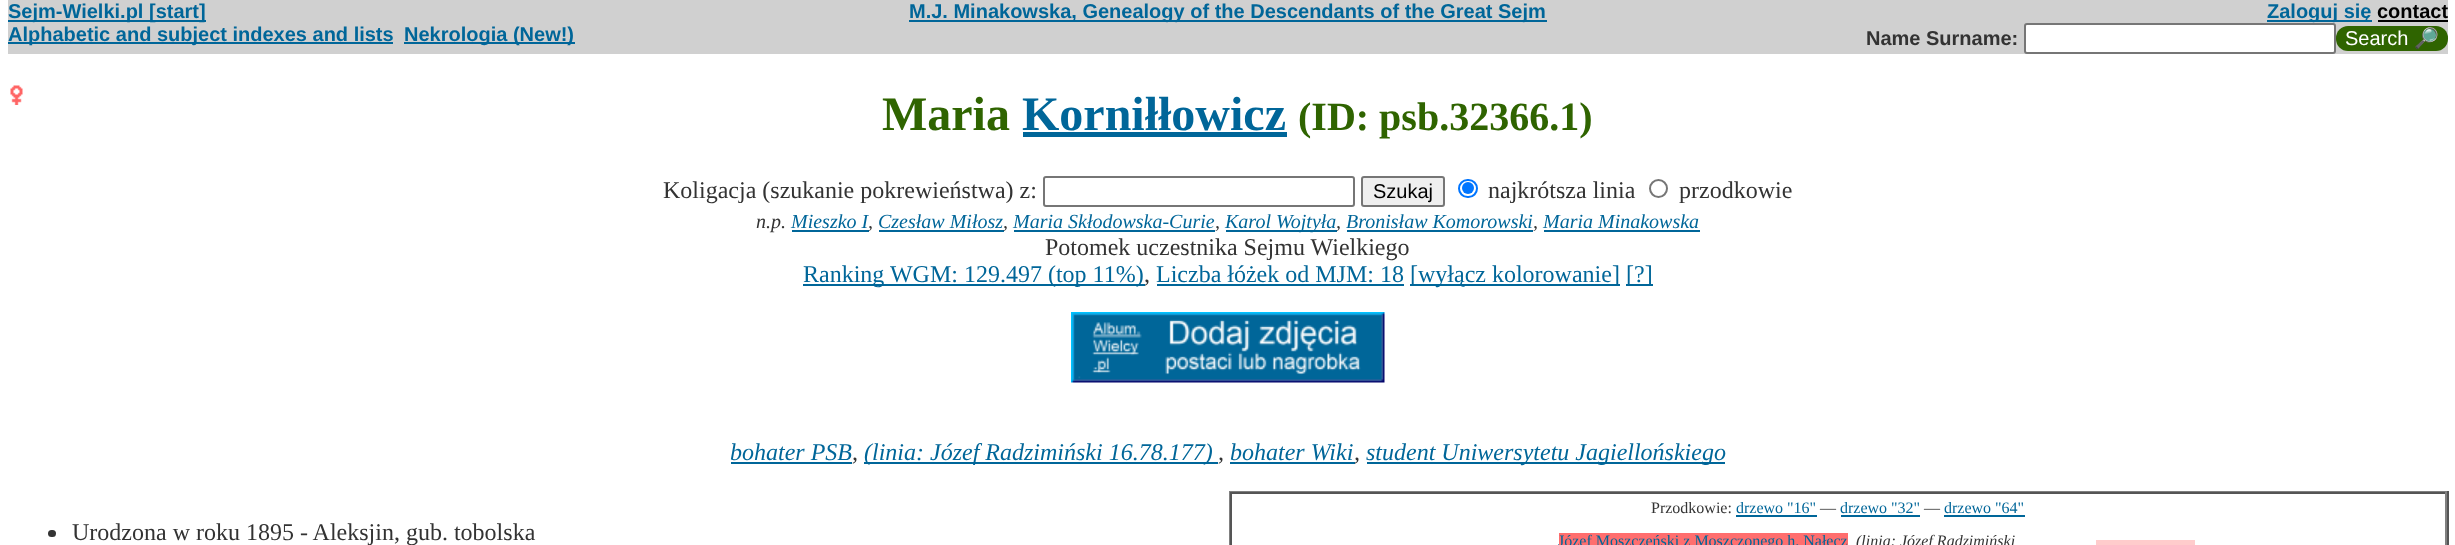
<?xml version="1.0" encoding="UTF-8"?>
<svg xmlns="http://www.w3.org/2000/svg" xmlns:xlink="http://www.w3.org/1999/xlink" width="2455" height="545">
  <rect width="100%" height="100%" fill="#ffffff" />
  <rect x="8" width="2440" height="54" fill="#d0d0d0" />
  <rect x="8" y="20" width="198" height="2" fill="#006699" />
  <rect x="909" y="20" width="638" height="2" fill="#006699" />
  <rect x="2267" y="20" width="105" height="2" fill="#006699" />
  <rect x="2378" y="20" width="70" height="2" fill="#000000" />
  <rect x="8" y="42" width="385" height="2" fill="#006699" />
  <rect x="404" y="42" width="171" height="2" fill="#006699" />
  <rect x="2025" y="24" width="310" height="29" rx="2" fill="#ffffff" stroke="#767676" stroke-width="2" />
  <rect x="2336" y="26" width="112" height="25" rx="12" fill="#2f6400" />
  <image x="10" y="85" width="13" height="20" xlink:href="image1.png" />
  <rect x="1023" y="132" width="264" height="5" fill="#006699" />
  <rect x="1044" y="177" width="310" height="29" rx="2" fill="none" stroke="#767676" stroke-width="2" />
  <rect x="1362" y="177" width="82" height="29" rx="2" fill="#efefef" stroke="#767676" stroke-width="2" />
  <rect x="1459" y="180" width="18" height="17" rx="8.5" fill="none" stroke="#0075ff" stroke-width="2" />
  <circle cx="1468" cy="188" r="6" fill="#0075ff" />
  <circle cx="1658.5" cy="188.5" r="8.5" fill="none" stroke="#767676" stroke-width="2" />
  <rect x="792" y="230" width="77" height="2" fill="#006699" />
  <rect x="879" y="230" width="125" height="2" fill="#006699" />
  <rect x="1014" y="230" width="201" height="2" fill="#006699" />
  <rect x="1226" y="230" width="111" height="2" fill="#006699" />
  <rect x="1347" y="230" width="186" height="2" fill="#006699" />
  <rect x="1544" y="230" width="156" height="2" fill="#006699" />
  <rect x="803" y="284" width="342" height="2" fill="#006699" />
  <rect x="1157" y="284" width="247" height="2" fill="#006699" />
  <rect x="1410" y="284" width="210" height="2" fill="#006699" />
  <rect x="1626" y="284" width="27" height="2" fill="#006699" />
  <image x="1071" y="312" width="314" height="71" xlink:href="image2.png" />
  <rect x="731" y="462" width="121" height="2" fill="#006699" />
  <rect x="864" y="462" width="354" height="2" fill="#006699" />
  <rect x="1230" y="462" width="125" height="2" fill="#006699" />
  <rect x="1367" y="462" width="358" height="2" fill="#006699" />
  <rect x="48" y="530" width="8" height="7" rx="3.5" fill="#333333" />
  <rect x="1229" y="491" width="1219" height="1" fill="#808080" />
  <rect x="2447" y="491" width="2" height="54" fill="#555555" />
  <rect x="1229" y="491" width="2" height="54" fill="#808080" />
  <rect x="1230" y="492" width="1217" height="2" fill="#555555" />
  <rect x="2445" y="492" width="2" height="53" fill="#808080" />
  <rect x="1230" y="492" width="2" height="53" fill="#555555" />
  <rect x="1736" y="515" width="81" height="2" fill="#006699" />
  <rect x="1841" y="515" width="79" height="2" fill="#006699" />
  <rect x="1944" y="515" width="81" height="2" fill="#006699" />
  <rect x="1559" y="533" width="289" height="12" fill="#ff6e6e" />
  <rect x="2096" y="540" width="99" height="5" fill="#ffcccc" />
  <text x="8" y="18" style="font-family: Liberation Sans; font-size: 20px; font-weight: bold; fill: #006699">Sejm-Wielki.pl [start]</text>
  <text x="909" y="18" style="font-family: Liberation Sans; font-size: 20px; font-weight: bold; fill: #006699">M.J. Minakowska, Genealogy of the Descendants of the Great Sejm</text>
  <text x="2267" y="18" style="font-family: Liberation Sans; font-size: 20px; font-weight: bold; fill: #006699">Zaloguj się</text>
  <text x="2377" y="18" style="font-family: Liberation Sans; font-size: 20px; font-weight: bold; fill: #000000">contact</text>
  <text x="8" y="41" style="font-family: Liberation Sans; font-size: 20px; font-weight: bold; fill: #006699">Alphabetic and subject indexes and lists</text>
  <text x="404" y="41" style="font-family: Liberation Sans; font-size: 20px; font-weight: bold; fill: #006699">Nekrologia (New!)</text>
  <text x="1866" y="45" style="font-family: Liberation Sans; font-size: 20px; font-weight: bold; fill: #333333">Name Surname:</text>
  <text x="2345" y="45" style="font-family: Liberation Sans; font-size: 20px; fill: #ffffff">Search</text>
  <text x="2414" y="45" style="font-family: Noto Color Emoji; font-size: 20px; fill: #ffffff">🔎</text>
  <text x="882" y="130" style="font-family: Liberation Serif; font-size: 48px; font-weight: bold; fill: #2f6400">Maria</text>
  <text x="1022" y="130" style="font-family: Liberation Serif; font-size: 48px; font-weight: bold; fill: #006699">Korniłłowicz</text>
  <text x="1298" y="130" style="font-family: Liberation Serif; font-size: 40px; font-weight: bold; fill: #2f6400">(ID: psb.32366.1)</text>
  <text x="663" y="198" style="font-family: Liberation Serif; font-size: 24px; fill: #333333">Koligacja (szukanie pokrewieństwa) z:</text>
  <text x="1373" y="198" style="font-family: Liberation Sans; font-size: 20px; fill: #000000">Szukaj</text>
  <text x="1488" y="198" style="font-family: Liberation Serif; font-size: 24px; fill: #333333">najkrótsza linia</text>
  <text x="1679" y="198" style="font-family: Liberation Serif; font-size: 24px; fill: #333333">przodkowie</text>
  <text x="756" y="228" style="font-family: Liberation Serif; font-size: 20px; font-style: italic; fill: #333333">n.p.</text>
  <text x="791" y="228" style="font-family: Liberation Serif; font-size: 20px; font-style: italic; fill: #006699">Mieszko I</text>
  <text x="868" y="228" style="font-family: Liberation Serif; font-size: 20px; font-style: italic; fill: #333333">,</text>
  <text x="878" y="228" style="font-family: Liberation Serif; font-size: 20px; font-style: italic; fill: #006699">Czesław Miłosz</text>
  <text x="1003" y="228" style="font-family: Liberation Serif; font-size: 20px; font-style: italic; fill: #333333">,</text>
  <text x="1013" y="228" style="font-family: Liberation Serif; font-size: 20px; font-style: italic; fill: #006699">Maria Skłodowska-Curie</text>
  <text x="1215" y="228" style="font-family: Liberation Serif; font-size: 20px; font-style: italic; fill: #333333">,</text>
  <text x="1225" y="228" style="font-family: Liberation Serif; font-size: 20px; font-style: italic; fill: #006699">Karol Wojtyła</text>
  <text x="1336" y="228" style="font-family: Liberation Serif; font-size: 20px; font-style: italic; fill: #333333">,</text>
  <text x="1346" y="228" style="font-family: Liberation Serif; font-size: 20px; font-style: italic; fill: #006699">Bronisław Komorowski</text>
  <text x="1533" y="228" style="font-family: Liberation Serif; font-size: 20px; font-style: italic; fill: #333333">,</text>
  <text x="1543" y="228" style="font-family: Liberation Serif; font-size: 20px; font-style: italic; fill: #006699">Maria Minakowska</text>
  <text x="1045" y="255" style="font-family: Liberation Serif; font-size: 24px; fill: #333333">Potomek uczestnika Sejmu Wielkiego</text>
  <text x="803" y="282" style="font-family: Liberation Serif; font-size: 24px; fill: #006699">Ranking WGM: 129.497 (top 11%)</text>
  <text x="1144" y="282" style="font-family: Liberation Serif; font-size: 24px; fill: #333333">,</text>
  <text x="1156" y="282" style="font-family: Liberation Serif; font-size: 24px; fill: #006699">Liczba łóżek od MJM: 18</text>
  <text x="1410" y="282" style="font-family: Liberation Serif; font-size: 24px; fill: #006699">[wyłącz kolorowanie]</text>
  <text x="1626" y="282" style="font-family: Liberation Serif; font-size: 24px; fill: #006699">[?]</text>
  <text x="730" y="460" style="font-family: Liberation Serif; font-size: 24px; font-style: italic; fill: #006699">bohater PSB</text>
  <text x="852" y="460" style="font-family: Liberation Serif; font-size: 24px; font-style: italic; fill: #333333">,</text>
  <text x="864" y="460" style="font-family: Liberation Serif; font-size: 24px; font-style: italic; fill: #006699">(linia: Józef Radzimiński 16.78.177)</text>
  <text x="1218" y="460" style="font-family: Liberation Serif; font-size: 24px; font-style: italic; fill: #333333">,</text>
  <text x="1230" y="460" style="font-family: Liberation Serif; font-size: 24px; font-style: italic; fill: #006699">bohater Wiki</text>
  <text x="1354" y="460" style="font-family: Liberation Serif; font-size: 24px; font-style: italic; fill: #333333">,</text>
  <text x="1366" y="460" style="font-family: Liberation Serif; font-size: 24px; font-style: italic; fill: #006699">student Uniwersytetu Jagiellońskiego</text>
  <text x="72" y="540" style="font-family: Liberation Serif; font-size: 24px; fill: #333333">Urodzona w roku 1895 - Aleksjin, gub. tobolska</text>
  <text x="1651" y="513" style="font-family: Liberation Serif; font-size: 16px; fill: #333333">Przodkowie:</text>
  <text x="1736" y="513" style="font-family: Liberation Serif; font-size: 16px; fill: #006699">drzewo "16"</text>
  <text x="1820" y="513" style="font-family: Liberation Serif; font-size: 16px; fill: #333333">—</text>
  <text x="1840" y="513" style="font-family: Liberation Serif; font-size: 16px; fill: #006699">drzewo "32"</text>
  <text x="1924" y="513" style="font-family: Liberation Serif; font-size: 16px; fill: #333333">—</text>
  <text x="1944" y="513" style="font-family: Liberation Serif; font-size: 16px; fill: #006699">drzewo "64"</text>
  <text x="1558" y="546" style="font-family: Liberation Serif; font-size: 16px; fill: #006699">Józef Moszczeński z Moszczonego h. Nałęcz</text>
  <text x="1856" y="546" style="font-family: Liberation Serif; font-size: 16px; font-style: italic; fill: #333333">(linia: Józef Radzimiński</text>
</svg>
